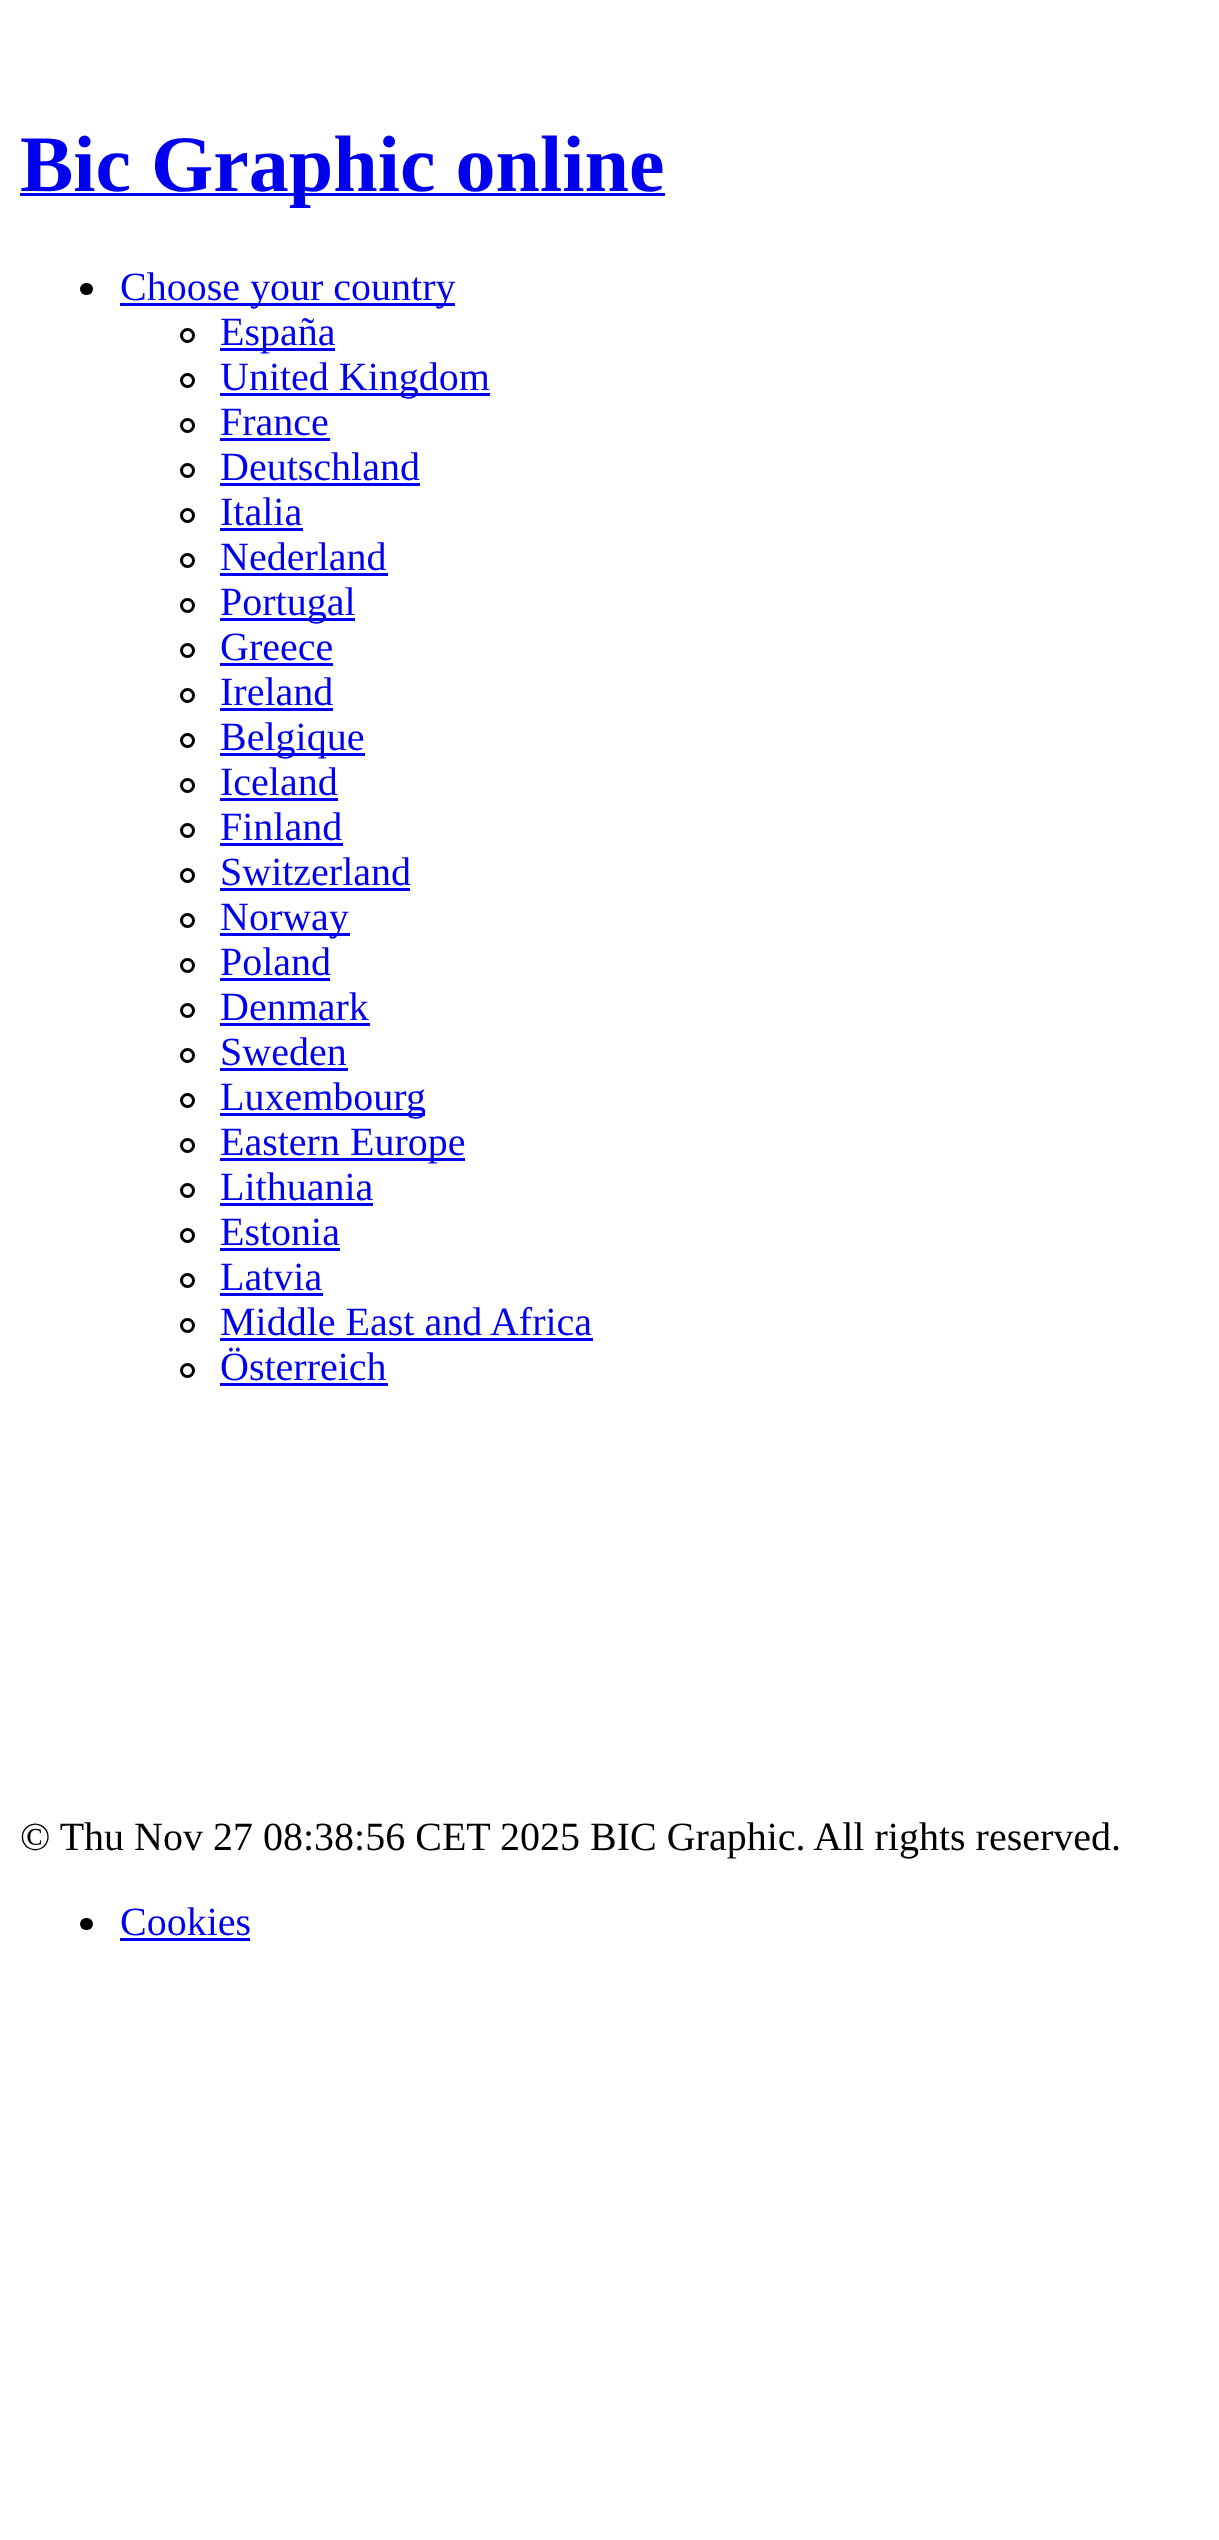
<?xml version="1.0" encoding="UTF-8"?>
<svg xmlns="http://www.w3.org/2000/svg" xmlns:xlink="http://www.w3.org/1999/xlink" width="1219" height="2540">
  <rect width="100%" height="100%" fill="#ffffff" />
  <rect x="20" y="193" width="645" height="3" fill="#0000ee" />
  <rect x="80" y="283" width="13" height="12" rx="6" fill="#000000" />
  <rect x="120" y="303" width="335" height="3" fill="#0000ee" />
  <circle cx="187.5" cy="335.5" r="6" fill="none" stroke="#000000" stroke-width="3" />
  <rect x="220" y="348" width="115" height="3" fill="#0000ee" />
  <circle cx="187.5" cy="380.5" r="6" fill="none" stroke="#000000" stroke-width="3" />
  <rect x="220" y="393" width="270" height="3" fill="#0000ee" />
  <circle cx="187.5" cy="425.5" r="6" fill="none" stroke="#000000" stroke-width="3" />
  <rect x="220" y="438" width="110" height="3" fill="#0000ee" />
  <circle cx="187.5" cy="470.5" r="6" fill="none" stroke="#000000" stroke-width="3" />
  <rect x="220" y="483" width="200" height="3" fill="#0000ee" />
  <circle cx="187.5" cy="515.5" r="6" fill="none" stroke="#000000" stroke-width="3" />
  <rect x="220" y="528" width="83" height="3" fill="#0000ee" />
  <circle cx="187.5" cy="560.5" r="6" fill="none" stroke="#000000" stroke-width="3" />
  <rect x="220" y="573" width="168" height="3" fill="#0000ee" />
  <circle cx="187.5" cy="605.5" r="6" fill="none" stroke="#000000" stroke-width="3" />
  <rect x="220" y="618" width="135" height="3" fill="#0000ee" />
  <circle cx="187.5" cy="650.5" r="6" fill="none" stroke="#000000" stroke-width="3" />
  <rect x="220" y="663" width="113" height="3" fill="#0000ee" />
  <circle cx="187.5" cy="695.5" r="6" fill="none" stroke="#000000" stroke-width="3" />
  <rect x="220" y="708" width="113" height="3" fill="#0000ee" />
  <circle cx="187.5" cy="740.5" r="6" fill="none" stroke="#000000" stroke-width="3" />
  <rect x="220" y="753" width="145" height="3" fill="#0000ee" />
  <circle cx="187.5" cy="785.5" r="6" fill="none" stroke="#000000" stroke-width="3" />
  <rect x="220" y="798" width="118" height="3" fill="#0000ee" />
  <circle cx="187.5" cy="830.5" r="6" fill="none" stroke="#000000" stroke-width="3" />
  <rect x="220" y="843" width="123" height="3" fill="#0000ee" />
  <circle cx="187.5" cy="875.5" r="6" fill="none" stroke="#000000" stroke-width="3" />
  <rect x="220" y="888" width="190" height="3" fill="#0000ee" />
  <circle cx="187.5" cy="920.5" r="6" fill="none" stroke="#000000" stroke-width="3" />
  <rect x="220" y="933" width="130" height="3" fill="#0000ee" />
  <circle cx="187.5" cy="965.5" r="6" fill="none" stroke="#000000" stroke-width="3" />
  <rect x="220" y="978" width="110" height="3" fill="#0000ee" />
  <circle cx="187.5" cy="1010.5" r="6" fill="none" stroke="#000000" stroke-width="3" />
  <rect x="220" y="1023" width="150" height="3" fill="#0000ee" />
  <circle cx="187.5" cy="1055.5" r="6" fill="none" stroke="#000000" stroke-width="3" />
  <rect x="220" y="1068" width="128" height="3" fill="#0000ee" />
  <circle cx="187.5" cy="1100.5" r="6" fill="none" stroke="#000000" stroke-width="3" />
  <rect x="220" y="1113" width="205" height="3" fill="#0000ee" />
  <circle cx="187.5" cy="1145.5" r="6" fill="none" stroke="#000000" stroke-width="3" />
  <rect x="220" y="1158" width="245" height="3" fill="#0000ee" />
  <circle cx="187.5" cy="1190.5" r="6" fill="none" stroke="#000000" stroke-width="3" />
  <rect x="220" y="1203" width="153" height="3" fill="#0000ee" />
  <circle cx="187.5" cy="1235.5" r="6" fill="none" stroke="#000000" stroke-width="3" />
  <rect x="220" y="1248" width="120" height="3" fill="#0000ee" />
  <circle cx="187.5" cy="1280.5" r="6" fill="none" stroke="#000000" stroke-width="3" />
  <rect x="220" y="1293" width="103" height="3" fill="#0000ee" />
  <circle cx="187.5" cy="1325.5" r="6" fill="none" stroke="#000000" stroke-width="3" />
  <rect x="220" y="1338" width="373" height="3" fill="#0000ee" />
  <circle cx="187.5" cy="1370.5" r="6" fill="none" stroke="#000000" stroke-width="3" />
  <rect x="220" y="1383" width="168" height="3" fill="#0000ee" />
  <rect x="80" y="1918" width="13" height="12" rx="6" fill="#000000" />
  <rect x="120" y="1938" width="130" height="3" fill="#0000ee" />
  <text x="20" y="191" style="font-family: Liberation Serif; font-size: 80px; font-weight: bold; fill: #0000ee">Bic Graphic online</text>
  <text x="120" y="300" style="font-family: Liberation Serif; font-size: 40px; fill: #0000ee">Choose your country</text>
  <text x="220" y="345" style="font-family: Liberation Serif; font-size: 40px; fill: #0000ee">España</text>
  <text x="220" y="390" style="font-family: Liberation Serif; font-size: 40px; fill: #0000ee">United Kingdom</text>
  <text x="220" y="435" style="font-family: Liberation Serif; font-size: 40px; fill: #0000ee">France</text>
  <text x="220" y="480" style="font-family: Liberation Serif; font-size: 40px; fill: #0000ee">Deutschland</text>
  <text x="220" y="525" style="font-family: Liberation Serif; font-size: 40px; fill: #0000ee">Italia</text>
  <text x="220" y="570" style="font-family: Liberation Serif; font-size: 40px; fill: #0000ee">Nederland</text>
  <text x="220" y="615" style="font-family: Liberation Serif; font-size: 40px; fill: #0000ee">Portugal</text>
  <text x="220" y="660" style="font-family: Liberation Serif; font-size: 40px; fill: #0000ee">Greece</text>
  <text x="220" y="705" style="font-family: Liberation Serif; font-size: 40px; fill: #0000ee">Ireland</text>
  <text x="220" y="750" style="font-family: Liberation Serif; font-size: 40px; fill: #0000ee">Belgique</text>
  <text x="220" y="795" style="font-family: Liberation Serif; font-size: 40px; fill: #0000ee">Iceland</text>
  <text x="220" y="840" style="font-family: Liberation Serif; font-size: 40px; fill: #0000ee">Finland</text>
  <text x="220" y="885" style="font-family: Liberation Serif; font-size: 40px; fill: #0000ee">Switzerland</text>
  <text x="220" y="930" style="font-family: Liberation Serif; font-size: 40px; fill: #0000ee">Norway</text>
  <text x="220" y="975" style="font-family: Liberation Serif; font-size: 40px; fill: #0000ee">Poland</text>
  <text x="220" y="1020" style="font-family: Liberation Serif; font-size: 40px; fill: #0000ee">Denmark</text>
  <text x="220" y="1065" style="font-family: Liberation Serif; font-size: 40px; fill: #0000ee">Sweden</text>
  <text x="220" y="1110" style="font-family: Liberation Serif; font-size: 40px; fill: #0000ee">Luxembourg</text>
  <text x="220" y="1155" style="font-family: Liberation Serif; font-size: 40px; fill: #0000ee">Eastern Europe</text>
  <text x="220" y="1200" style="font-family: Liberation Serif; font-size: 40px; fill: #0000ee">Lithuania</text>
  <text x="220" y="1245" style="font-family: Liberation Serif; font-size: 40px; fill: #0000ee">Estonia</text>
  <text x="220" y="1290" style="font-family: Liberation Serif; font-size: 40px; fill: #0000ee">Latvia</text>
  <text x="220" y="1335" style="font-family: Liberation Serif; font-size: 40px; fill: #0000ee">Middle East and Africa</text>
  <text x="220" y="1380" style="font-family: Liberation Serif; font-size: 40px; fill: #0000ee">Österreich</text>
  <text x="20" y="1850" style="font-family: Liberation Serif; font-size: 40px; fill: #000000">© Thu Nov 27 08:38:56 CET 2025 BIC Graphic. All rights reserved.</text>
  <text x="120" y="1935" style="font-family: Liberation Serif; font-size: 40px; fill: #0000ee">Cookies</text>
</svg>
